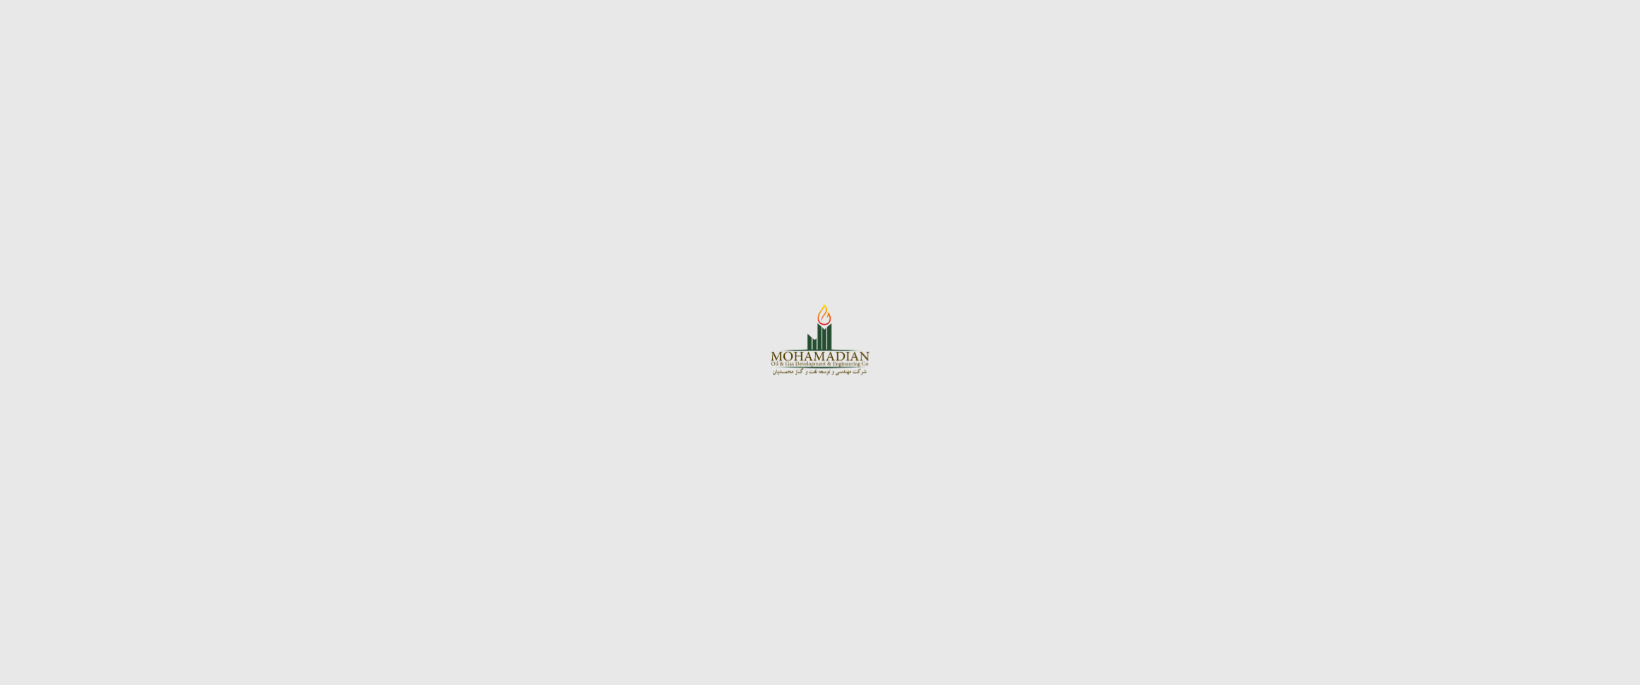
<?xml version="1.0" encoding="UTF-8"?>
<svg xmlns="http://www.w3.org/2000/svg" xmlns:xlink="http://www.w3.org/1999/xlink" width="1640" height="685">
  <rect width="100%" height="100%" fill="#e8e8e8" />
  <image x="770" y="304" width="100" height="72" xlink:href="image1.png" />
</svg>
